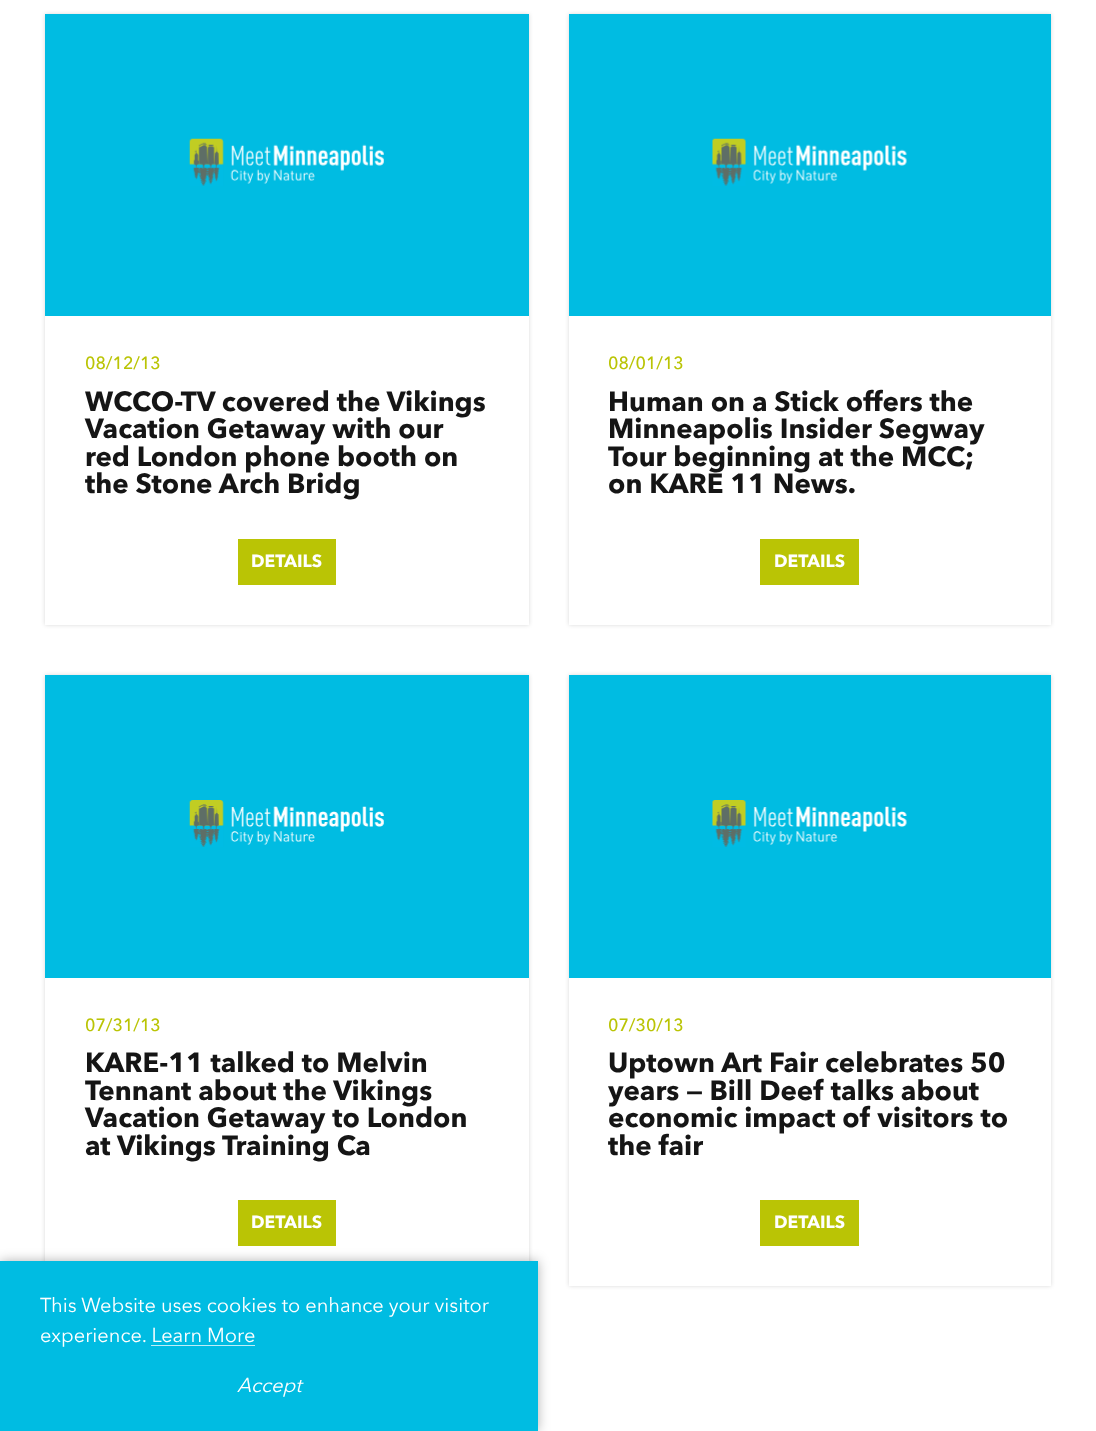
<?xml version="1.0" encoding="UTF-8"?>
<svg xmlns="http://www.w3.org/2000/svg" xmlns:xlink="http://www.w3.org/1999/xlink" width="1096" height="1431">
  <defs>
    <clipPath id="clip1"><path d="M 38 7 h 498 v 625 h -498 z m 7 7 h 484 v 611 h -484 z" clip-rule="evenodd" /></clipPath>
    <clipPath id="clip2"><path d="M 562 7 h 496 v 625 h -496 z m 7 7 h 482 v 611 h -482 z" clip-rule="evenodd" /></clipPath>
    <clipPath id="clip3"><path d="M 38 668 h 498 v 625 h -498 z m 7 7 h 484 v 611 h -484 z" clip-rule="evenodd" /></clipPath>
    <clipPath id="clip4"><path d="M 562 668 h 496 v 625 h -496 z m 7 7 h 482 v 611 h -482 z" clip-rule="evenodd" /></clipPath>
  </defs>
  <rect width="100%" height="100%" fill="#ffffff" />
  <g clip-path="url(#clip1)">
    <rect x="45" y="14" width="484" height="611" fill="#000000" fill-opacity="0.15" filter="blur(2px)" />
  </g>
  <rect x="45" y="14" width="484" height="302" fill="#00bce2" />
  <image x="189" y="138" width="195" height="48" xlink:href="image1.png" />
  <rect x="238" y="539" width="98" height="46" fill="#bac405" />
  <g clip-path="url(#clip2)">
    <rect x="569" y="14" width="482" height="611" fill="#000000" fill-opacity="0.15" filter="blur(2px)" />
  </g>
  <rect x="569" y="14" width="482" height="302" fill="#00bce2" />
  <image x="712" y="138" width="195" height="48" xlink:href="image2.png" />
  <rect x="760" y="539" width="99" height="46" fill="#bac405" />
  <g clip-path="url(#clip3)">
    <rect x="45" y="675" width="484" height="611" fill="#000000" fill-opacity="0.15" filter="blur(2px)" />
  </g>
  <rect x="45" y="675" width="484" height="303" fill="#00bce2" />
  <image x="189" y="800" width="195" height="47" xlink:href="image3.png" />
  <rect x="238" y="1200" width="98" height="46" fill="#bac405" />
  <g clip-path="url(#clip4)">
    <rect x="569" y="675" width="482" height="611" fill="#000000" fill-opacity="0.15" filter="blur(2px)" />
  </g>
  <rect x="569" y="675" width="482" height="303" fill="#00bce2" />
  <image x="712" y="800" width="195" height="47" xlink:href="image4.png" />
  <rect x="760" y="1200" width="99" height="46" fill="#bac405" />
  <rect y="1261" width="538" height="170" fill="#000000" fill-opacity="0.3" filter="blur(6px)" />
  <rect y="1261" width="538" height="170" fill="#00bce2" />
  <text x="85" y="369" style="font-family: 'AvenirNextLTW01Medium'; font-size: 17.5px; font-weight: 500; fill: #bac405">08/12/13</text>
  <text x="85" y="411" style="font-family: Avenir Next; font-size: 27.5px; font-weight: bold; fill: #151515">WCCO-TV covered the Vikings</text>
  <text x="85" y="438" style="font-family: Avenir Next; font-size: 27.5px; font-weight: bold; fill: #151515">Vacation Getaway with our</text>
  <text x="85" y="466" style="font-family: Avenir Next; font-size: 27.5px; font-weight: bold; fill: #151515">red London phone booth on</text>
  <text x="85" y="493" style="font-family: Avenir Next; font-size: 27.5px; font-weight: bold; fill: #151515">the Stone Arch Bridg</text>
  <text x="251" y="567" style="font-family: Avenir Next; font-size: 17.5px; font-weight: bold; fill: #ffffff">DETAILS</text>
  <text x="608" y="369" style="font-family: 'AvenirNextLTW01Medium'; font-size: 17.5px; font-weight: 500; fill: #bac405">08/01/13</text>
  <text x="608" y="411" style="font-family: Avenir Next; font-size: 27.5px; font-weight: bold; fill: #151515">Human on a Stick offers the</text>
  <text x="608" y="438" style="font-family: Avenir Next; font-size: 27.5px; font-weight: bold; fill: #151515">Minneapolis Insider Segway</text>
  <text x="608" y="466" style="font-family: Avenir Next; font-size: 27.5px; font-weight: bold; fill: #151515">Tour beginning at the MCC;</text>
  <text x="608" y="493" style="font-family: Avenir Next; font-size: 27.5px; font-weight: bold; fill: #151515">on KARE 11 News.</text>
  <text x="774" y="567" style="font-family: Avenir Next; font-size: 17.5px; font-weight: bold; fill: #ffffff">DETAILS</text>
  <text x="85" y="1031" style="font-family: 'AvenirNextLTW01Medium'; font-size: 17.5px; font-weight: 500; fill: #bac405">07/31/13</text>
  <text x="85" y="1072" style="font-family: Avenir Next; font-size: 27.5px; font-weight: bold; fill: #151515">KARE-11 talked to Melvin</text>
  <text x="85" y="1100" style="font-family: Avenir Next; font-size: 27.5px; font-weight: bold; fill: #151515">Tennant about the Vikings</text>
  <text x="85" y="1127" style="font-family: Avenir Next; font-size: 27.5px; font-weight: bold; fill: #151515">Vacation Getaway to London</text>
  <text x="85" y="1155" style="font-family: Avenir Next; font-size: 27.5px; font-weight: bold; fill: #151515">at Vikings Training Ca</text>
  <text x="251" y="1228" style="font-family: Avenir Next; font-size: 17.5px; font-weight: bold; fill: #ffffff">DETAILS</text>
  <text x="608" y="1031" style="font-family: 'AvenirNextLTW01Medium'; font-size: 17.5px; font-weight: 500; fill: #bac405">07/30/13</text>
  <text x="608" y="1072" style="font-family: Avenir Next; font-size: 27.5px; font-weight: bold; fill: #151515">Uptown Art Fair celebrates 50</text>
  <text x="608" y="1100" style="font-family: Avenir Next; font-size: 27.5px; font-weight: bold; fill: #151515">years — Bill Deef talks about</text>
  <text x="608" y="1127" style="font-family: Avenir Next; font-size: 27.5px; font-weight: bold; fill: #151515">economic impact of visitors to</text>
  <text x="608" y="1155" style="font-family: Avenir Next; font-size: 27.5px; font-weight: bold; fill: #151515">the fair</text>
  <text x="774" y="1228" style="font-family: Avenir Next; font-size: 17.5px; font-weight: bold; fill: #ffffff">DETAILS</text>
  <text x="40" y="1312" style="font-family: 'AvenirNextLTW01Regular'; font-size: 20px; fill: #ffffff">This Website uses cookies to enhance your visitor</text>
  <text x="40" y="1342" style="font-family: 'AvenirNextLTW01Regular'; font-size: 20px; fill: #ffffff">experience. Learn More</text>
  <rect x="151" y="1345" width="104" height="1" fill="#bfeef8" />
  <text x="237" y="1392" style="font-family: 'AvenirNextLTW01Regular'; font-size: 20px; font-style: italic; fill: #ffffff">Accept</text>
</svg>
